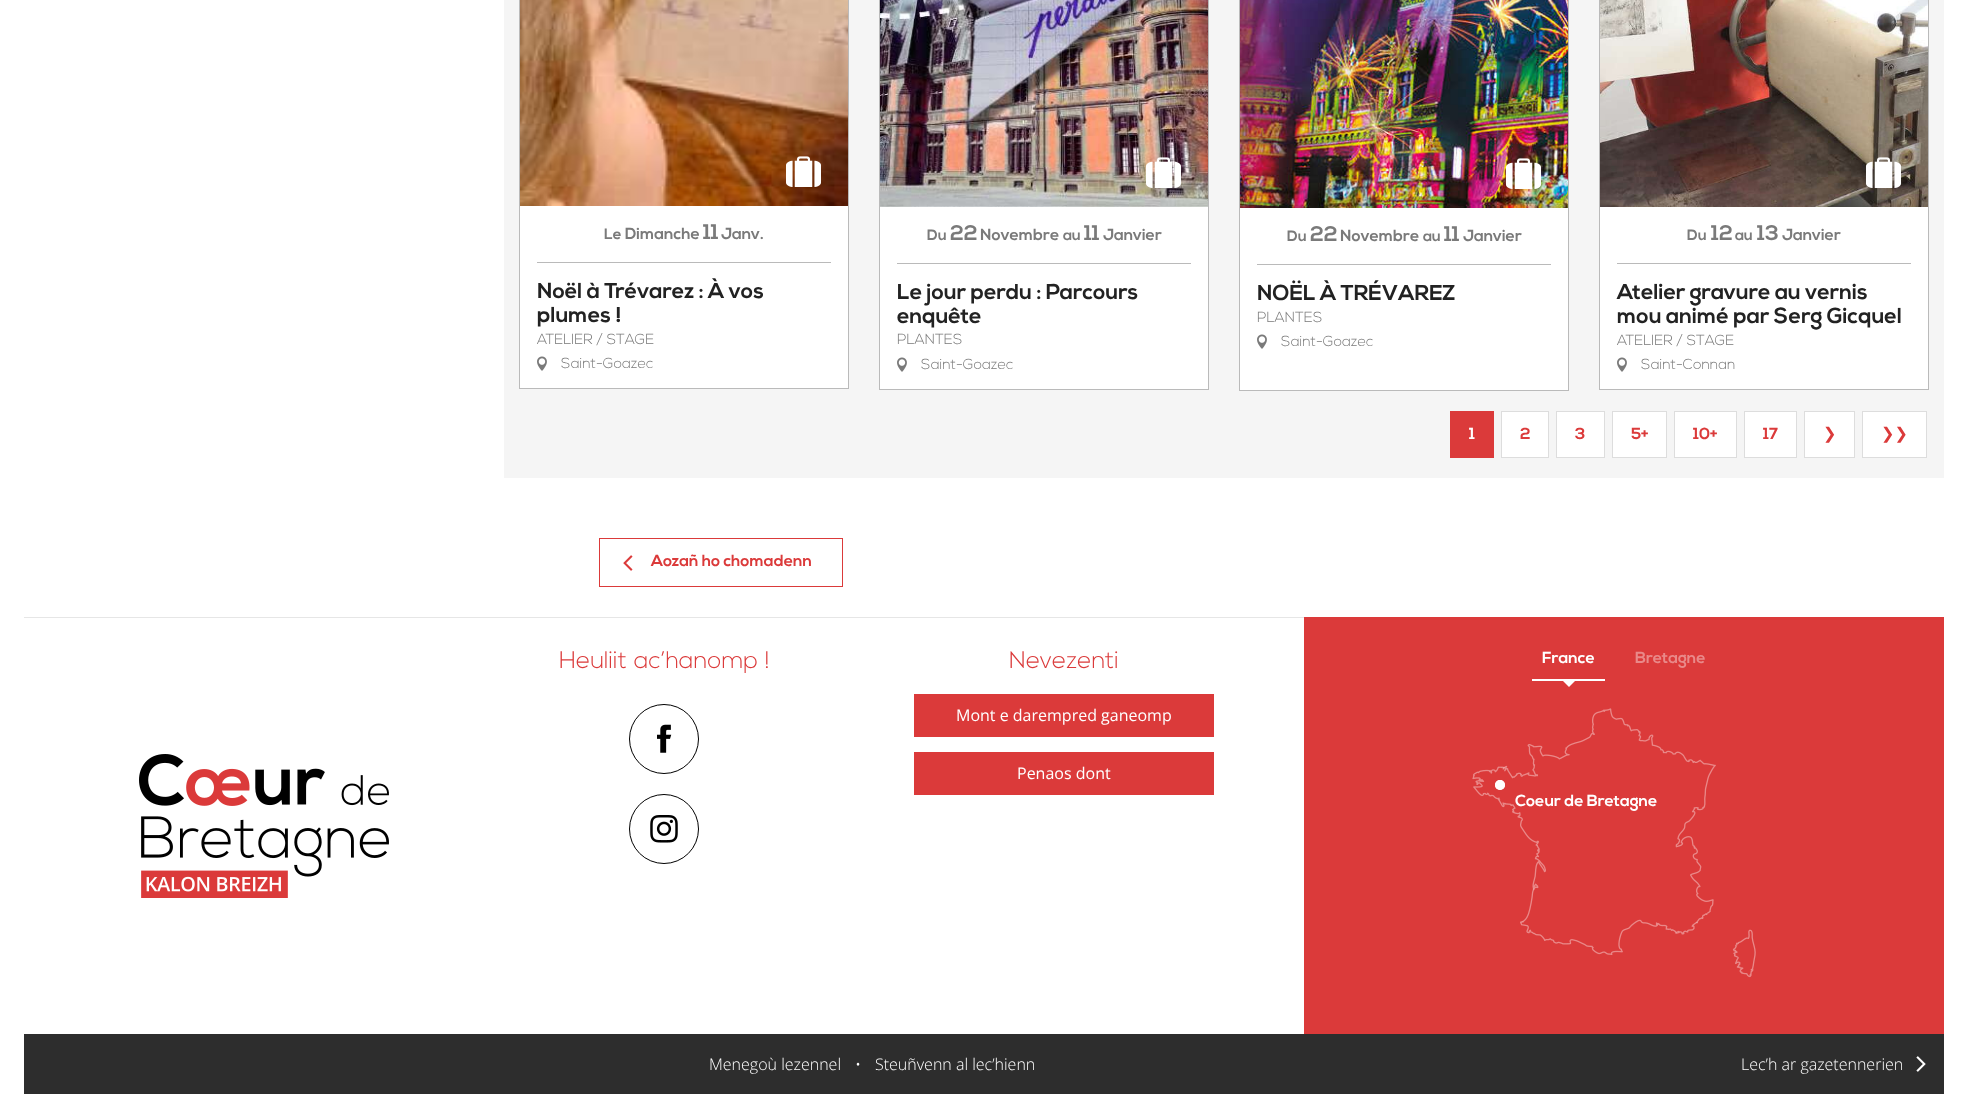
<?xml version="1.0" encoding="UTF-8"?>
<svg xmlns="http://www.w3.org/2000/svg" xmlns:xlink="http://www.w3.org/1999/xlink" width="1968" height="1094">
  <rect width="100%" height="100%" fill="#ffffff" />
  <rect x="504" width="1440" height="478" fill="#f5f5f5" />
  <rect x="848" width="1" height="389" fill="#bababa" />
  <rect x="519" width="1" height="206" fill="#bababa" />
  <image x="520" y="0" width="328" height="206" xlink:href="image1.png" />
  <rect x="520" y="206" width="328" height="182" fill="#ffffff" />
  <rect x="519" y="388" width="330" height="1" fill="#bababa" />
  <rect x="519" y="206" width="1" height="183" fill="#bababa" />
  <image x="786" y="156" width="35" height="31" xlink:href="image2.png" />
  <rect x="537" y="262" width="294" height="1" fill="#bababa" />
  <image x="537" y="356" width="10" height="15" xlink:href="image3.png" />
  <rect x="1208" width="1" height="390" fill="#bababa" />
  <rect x="879" width="1" height="207" fill="#bababa" />
  <image x="880" y="0" width="328" height="207" xlink:href="image4.png" />
  <rect x="880" y="207" width="328" height="182" fill="#ffffff" />
  <rect x="879" y="389" width="330" height="1" fill="#bababa" />
  <rect x="879" y="207" width="1" height="183" fill="#bababa" />
  <image x="1146" y="157" width="35" height="31" xlink:href="image5.png" />
  <rect x="897" y="263" width="294" height="1" fill="#bababa" />
  <image x="897" y="357" width="10" height="15" xlink:href="image3.png" />
  <rect x="1568" width="1" height="391" fill="#bababa" />
  <rect x="1239" width="1" height="208" fill="#bababa" />
  <image x="1240" y="0" width="328" height="208" xlink:href="image6.png" />
  <rect x="1240" y="208" width="328" height="182" fill="#ffffff" />
  <rect x="1239" y="390" width="330" height="1" fill="#bababa" />
  <rect x="1239" y="208" width="1" height="183" fill="#bababa" />
  <image x="1506" y="158" width="35" height="31" xlink:href="image7.png" />
  <rect x="1257" y="264" width="294" height="1" fill="#bababa" />
  <image x="1257" y="334" width="10" height="15" xlink:href="image3.png" />
  <rect x="1928" width="1" height="390" fill="#bababa" />
  <rect x="1599" width="1" height="207" fill="#bababa" />
  <image x="1600" y="0" width="328" height="207" xlink:href="image8.png" />
  <rect x="1600" y="207" width="328" height="182" fill="#ffffff" />
  <rect x="1599" y="389" width="330" height="1" fill="#bababa" />
  <rect x="1599" y="207" width="1" height="183" fill="#bababa" />
  <image x="1866" y="157" width="35" height="31" xlink:href="image9.png" />
  <rect x="1617" y="263" width="294" height="1" fill="#bababa" />
  <image x="1617" y="357" width="10" height="15" xlink:href="image3.png" />
  <rect x="1450" y="411" width="44" height="47" fill="#db3a3a" />
  <rect x="1501.5" y="411.5" width="47" height="46" fill="#ffffff" stroke="#dddddd" />
  <rect x="1556.5" y="411.5" width="48" height="46" fill="#ffffff" stroke="#dddddd" />
  <rect x="1612.5" y="411.5" width="54" height="46" fill="#ffffff" stroke="#dddddd" />
  <rect x="1674.5" y="411.5" width="62" height="46" fill="#ffffff" stroke="#dddddd" />
  <rect x="1744.5" y="411.5" width="52" height="46" fill="#ffffff" stroke="#dddddd" />
  <rect x="1804.5" y="411.5" width="50" height="46" fill="#ffffff" stroke="#dddddd" />
  <rect x="1862.5" y="411.5" width="64" height="46" fill="#ffffff" stroke="#dddddd" />
  <rect x="599.5" y="538.5" width="243" height="48" fill="none" stroke="#db3a3a" />
  <image x="623" y="555" width="10" height="16" xlink:href="image10.png" />
  <rect x="24" y="617" width="1280" height="1" fill="#e6e6e6" />
  <image x="139" y="754" width="250" height="144" xlink:href="image11.png" />
  <circle cx="664" cy="739" r="34.5" fill="none" stroke="#000000" />
  <image x="657" y="724" width="15" height="29" xlink:href="image12.png" />
  <circle cx="664" cy="829" r="34.5" fill="none" stroke="#000000" />
  <image x="650" y="815" width="28" height="28" xlink:href="image13.png" />
  <rect x="914" y="694" width="300" height="43" fill="#db3a3a" />
  <rect x="914" y="752" width="300" height="43" fill="#db3a3a" />
  <rect x="1304" y="617" width="640" height="417" fill="#db3a3a" />
  <rect x="1532" y="679" width="73" height="2" fill="#ffffff" />
  <path d="M 1562 680 h 14 l -7 7 z" fill="#ffffff" />
  <image x="1472" y="708" width="284" height="270" xlink:href="image14.png" />
  <circle cx="1500" cy="785" r="4" fill="none" stroke="#ffffff" stroke-width="2" />
  <circle cx="1500" cy="785" r="5" fill="#ffffff" />
  <rect x="24" y="1034" width="1920" height="60" fill="#2d2d2d" />
  <image x="1916" y="1056" width="10" height="16" xlink:href="image15.png" />
  <text x="604" y="239" style="font-family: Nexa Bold; font-size: 15px; font-weight: bold; fill: #7a7a7a">Le</text>
  <text x="625" y="239" style="font-family: Nexa Bold; font-size: 16px; font-weight: bold; fill: #7a7a7a">Dimanche</text>
  <text x="703" y="239" style="font-family: Nexa Bold; font-size: 21px; font-weight: bold; fill: #7a7a7a">11</text>
  <text x="721" y="239" style="font-family: Nexa Bold; font-size: 16px; font-weight: bold; fill: #7a7a7a">Janv.</text>
  <text x="537" y="298" style="font-family: Nexa Bold; font-size: 21.6px; font-weight: bold; fill: #222222">Noël à Trévarez : À vos</text>
  <text x="537" y="322" style="font-family: Nexa Bold; font-size: 21.6px; font-weight: bold; fill: #222222">plumes !</text>
  <text x="537" y="344" style="font-family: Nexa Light; font-size: 14.5px; font-weight: 300; fill: #7a7a7a">ATELIER / STAGE</text>
  <text x="561" y="368" style="font-family: Nexa Light; font-size: 14.5px; font-weight: 300; fill: #7a7a7a">Saint-Goazec</text>
  <text x="927" y="240" style="font-family: Nexa Bold; font-size: 15px; font-weight: bold; fill: #7a7a7a">Du</text>
  <text x="950" y="240" style="font-family: Nexa Bold; font-size: 21px; font-weight: bold; fill: #7a7a7a">22</text>
  <text x="980" y="240" style="font-family: Nexa Bold; font-size: 16px; font-weight: bold; fill: #7a7a7a">Novembre</text>
  <text x="1063" y="240" style="font-family: Nexa Bold; font-size: 15px; font-weight: bold; fill: #7a7a7a">au</text>
  <text x="1084" y="240" style="font-family: Nexa Bold; font-size: 21px; font-weight: bold; fill: #7a7a7a">11</text>
  <text x="1103" y="240" style="font-family: Nexa Bold; font-size: 16px; font-weight: bold; fill: #7a7a7a">Janvier</text>
  <text x="897" y="299" style="font-family: Nexa Bold; font-size: 21.6px; font-weight: bold; fill: #222222">Le jour perdu : Parcours</text>
  <text x="897" y="323" style="font-family: Nexa Bold; font-size: 21.6px; font-weight: bold; fill: #222222">enquête</text>
  <text x="897" y="344" style="font-family: Nexa Light; font-size: 14.5px; font-weight: 300; fill: #7a7a7a">PLANTES</text>
  <text x="921" y="369" style="font-family: Nexa Light; font-size: 14.5px; font-weight: 300; fill: #7a7a7a">Saint-Goazec</text>
  <text x="1287" y="241" style="font-family: Nexa Bold; font-size: 15px; font-weight: bold; fill: #7a7a7a">Du</text>
  <text x="1310" y="241" style="font-family: Nexa Bold; font-size: 21px; font-weight: bold; fill: #7a7a7a">22</text>
  <text x="1340" y="241" style="font-family: Nexa Bold; font-size: 16px; font-weight: bold; fill: #7a7a7a">Novembre</text>
  <text x="1423" y="241" style="font-family: Nexa Bold; font-size: 15px; font-weight: bold; fill: #7a7a7a">au</text>
  <text x="1444" y="241" style="font-family: Nexa Bold; font-size: 21px; font-weight: bold; fill: #7a7a7a">11</text>
  <text x="1463" y="241" style="font-family: Nexa Bold; font-size: 16px; font-weight: bold; fill: #7a7a7a">Janvier</text>
  <text x="1257" y="300" style="font-family: Nexa Bold; font-size: 21.6px; font-weight: bold; fill: #222222">NOËL À TRÉVAREZ</text>
  <text x="1257" y="322" style="font-family: Nexa Light; font-size: 14.5px; font-weight: 300; fill: #7a7a7a">PLANTES</text>
  <text x="1281" y="346" style="font-family: Nexa Light; font-size: 14.5px; font-weight: 300; fill: #7a7a7a">Saint-Goazec</text>
  <text x="1687" y="240" style="font-family: Nexa Bold; font-size: 15px; font-weight: bold; fill: #7a7a7a">Du</text>
  <text x="1711" y="240" style="font-family: Nexa Bold; font-size: 21px; font-weight: bold; fill: #7a7a7a">12</text>
  <text x="1735" y="240" style="font-family: Nexa Bold; font-size: 15px; font-weight: bold; fill: #7a7a7a">au</text>
  <text x="1757" y="240" style="font-family: Nexa Bold; font-size: 21px; font-weight: bold; fill: #7a7a7a">13</text>
  <text x="1782" y="240" style="font-family: Nexa Bold; font-size: 16px; font-weight: bold; fill: #7a7a7a">Janvier</text>
  <text x="1617" y="299" style="font-family: Nexa Bold; font-size: 21.6px; font-weight: bold; fill: #222222">Atelier gravure au vernis</text>
  <text x="1617" y="323" style="font-family: Nexa Bold; font-size: 21.6px; font-weight: bold; fill: #222222">mou animé par Serg Gicquel</text>
  <text x="1617" y="345" style="font-family: Nexa Light; font-size: 14.5px; font-weight: 300; fill: #7a7a7a">ATELIER / STAGE</text>
  <text x="1641" y="369" style="font-family: Nexa Light; font-size: 14.5px; font-weight: 300; fill: #7a7a7a">Saint-Connan</text>
  <text x="1469" y="439" style="font-family: Nexa Bold; font-size: 16px; font-weight: bold; fill: #ffffff">1</text>
  <text x="1520" y="439" style="font-family: Nexa Bold; font-size: 16px; font-weight: bold; fill: #db3a3a">2</text>
  <text x="1575" y="439" style="font-family: Nexa Bold; font-size: 16px; font-weight: bold; fill: #db3a3a">3</text>
  <text x="1631" y="439" style="font-family: Nexa Bold; font-size: 16px; font-weight: bold; fill: #db3a3a">5+</text>
  <text x="1693" y="439" style="font-family: Nexa Bold; font-size: 16px; font-weight: bold; fill: #db3a3a">10+</text>
  <text x="1763" y="439" style="font-family: Nexa Bold; font-size: 16px; font-weight: bold; fill: #db3a3a">17</text>
  <text x="1823" y="439" style="font-family: DejaVu Sans; font-size: 16px; fill: #db3a3a">❯</text>
  <text x="1881" y="439" style="font-family: DejaVu Sans; font-size: 16px; fill: #db3a3a">❯❯</text>
  <text x="651" y="566" style="font-family: Nexa Bold; font-size: 16px; font-weight: bold; fill: #db3a3a">Aozañ ho chomadenn</text>
  <text x="559" y="668" style="font-family: Nexa Light; font-size: 24px; font-weight: 300; fill: #db3a3a">Heuliit ac’hanomp !</text>
  <text x="1009" y="668" style="font-family: Nexa Light; font-size: 24px; font-weight: 300; fill: #db3a3a">Nevezenti</text>
  <text x="956" y="721" style="font-family: Open Sans; font-size: 16px; fill: #ffffff">Mont e darempred ganeomp</text>
  <text x="1017" y="779" style="font-family: Open Sans; font-size: 16px; fill: #ffffff">Penaos dont</text>
  <text x="1542" y="663" style="font-family: Nexa Bold; font-size: 16px; font-weight: bold; fill: #ffffff">France</text>
  <text x="1635" y="663" style="font-family: Nexa Bold; font-size: 16px; font-weight: bold; fill: #e98989">Bretagne</text>
  <text x="1515" y="806" style="font-family: Nexa Bold; font-size: 16px; font-weight: bold; fill: #ffffff">Coeur de Bretagne</text>
  <text x="709" y="1070" style="font-family: Open Sans; font-size: 16px; font-weight: 300; fill: #ffffff">Menegoù lezennel</text>
  <text x="855" y="1070" style="font-family: Open Sans; font-size: 16px; font-weight: 300; fill: #ffffff">•</text>
  <text x="875" y="1070" style="font-family: Open Sans; font-size: 16px; font-weight: 300; fill: #ffffff">Steuñvenn al lec’hienn</text>
  <text x="1741" y="1070" style="font-family: Open Sans; font-size: 16px; font-weight: 300; fill: #ffffff">Lec’h ar gazetennerien</text>
</svg>
